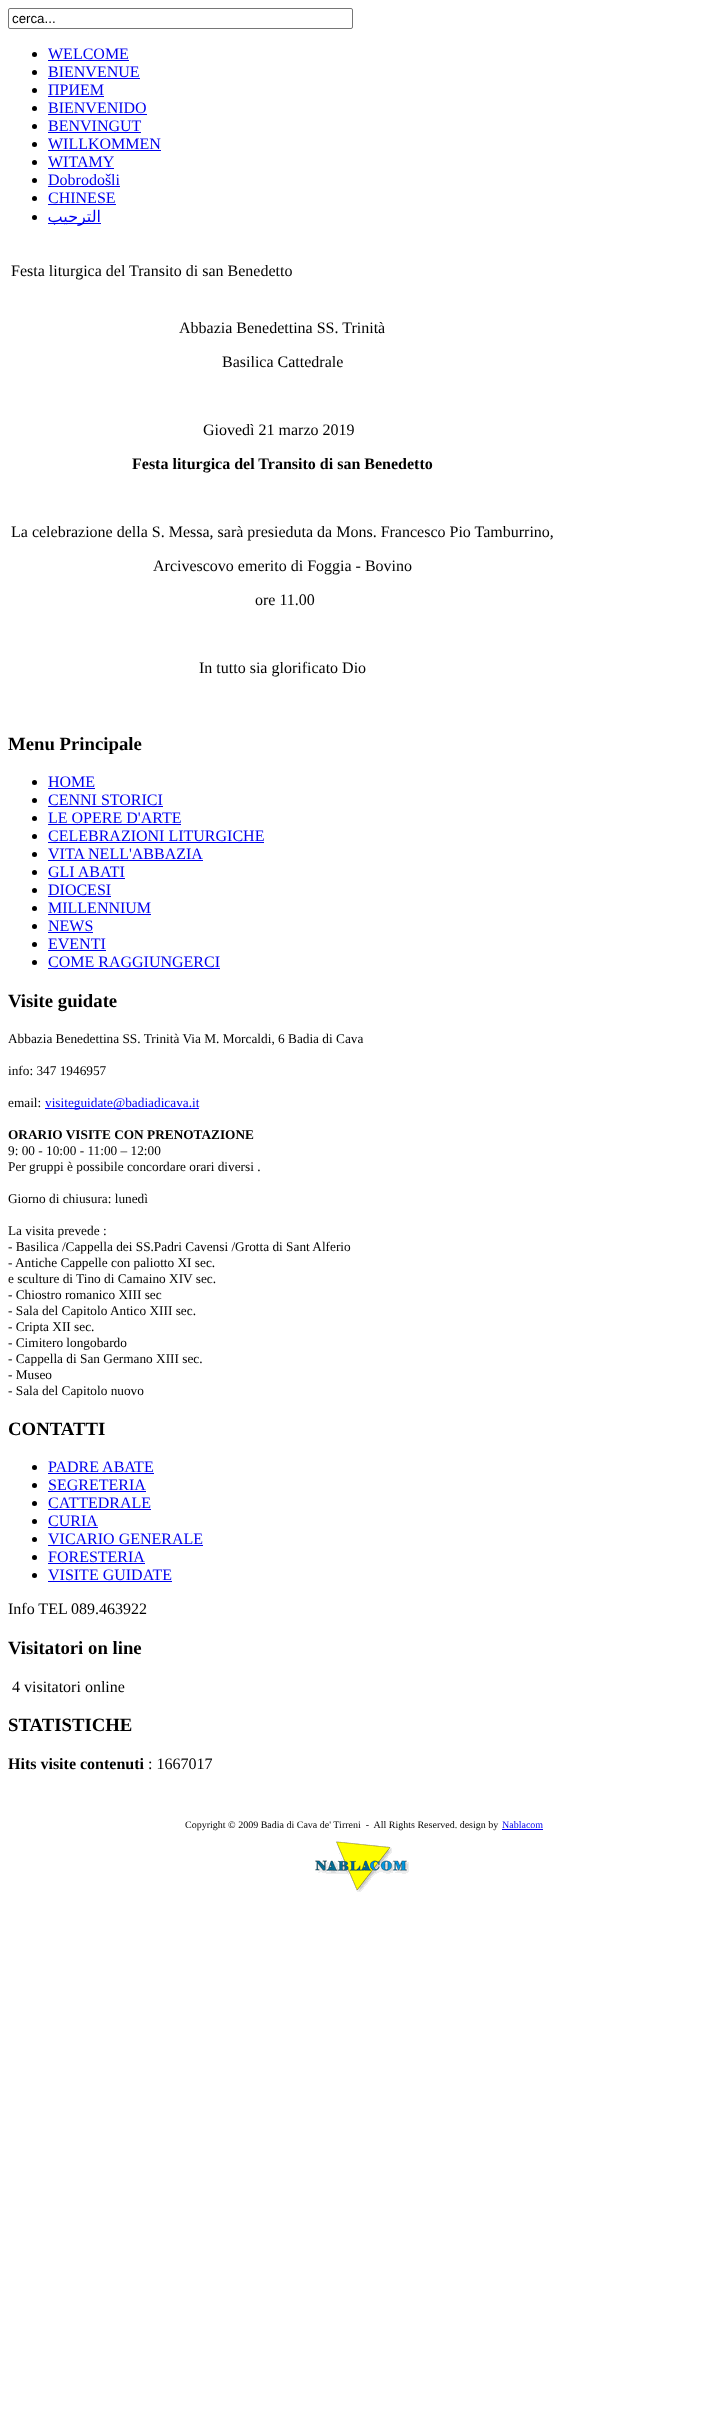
<?xml version="1.0" encoding="UTF-8"?>
<svg xmlns="http://www.w3.org/2000/svg" xmlns:xlink="http://www.w3.org/1999/xlink" width="728" height="2411">
  <rect width="100%" height="100%" fill="#ffffff" />
  <rect x="8.5" y="8.5" width="344" height="20" rx="1.5" fill="none" stroke="#767676" />
  <circle cx="34.5" cy="54.5" r="2.5" fill="#000000" />
  <rect x="48" y="60" width="81" height="1" fill="#0000ee" />
  <circle cx="34.5" cy="72.5" r="2.5" fill="#000000" />
  <rect x="48" y="78" width="92" height="1" fill="#0000ee" />
  <circle cx="34.5" cy="90.5" r="2.5" fill="#000000" />
  <rect x="48" y="96" width="56" height="1" fill="#0000ee" />
  <circle cx="34.5" cy="108.5" r="2.5" fill="#000000" />
  <rect x="48" y="114" width="99" height="1" fill="#0000ee" />
  <circle cx="34.5" cy="126.5" r="2.5" fill="#000000" />
  <rect x="48" y="132" width="93" height="1" fill="#0000ee" />
  <circle cx="34.5" cy="144.5" r="2.5" fill="#000000" />
  <rect x="48" y="150" width="113" height="1" fill="#0000ee" />
  <circle cx="34.5" cy="162.5" r="2.5" fill="#000000" />
  <rect x="48" y="168" width="66" height="1" fill="#0000ee" />
  <circle cx="34.5" cy="180.5" r="2.5" fill="#000000" />
  <rect x="48" y="186" width="72" height="1" fill="#0000ee" />
  <circle cx="34.5" cy="198.5" r="2.5" fill="#000000" />
  <rect x="48" y="204" width="68" height="1" fill="#0000ee" />
  <circle cx="34.5" cy="217.5" r="2.5" fill="#000000" />
  <rect x="48" y="223" width="53" height="1" fill="#0000ee" />
  <circle cx="34.5" cy="782.5" r="2.5" fill="#000000" />
  <rect x="48" y="788" width="47" height="1" fill="#0000ee" />
  <circle cx="34.5" cy="800.5" r="2.5" fill="#000000" />
  <rect x="48" y="806" width="115" height="1" fill="#0000ee" />
  <circle cx="34.5" cy="818.5" r="2.5" fill="#000000" />
  <rect x="48" y="824" width="133" height="1" fill="#0000ee" />
  <circle cx="34.5" cy="836.5" r="2.5" fill="#000000" />
  <rect x="48" y="842" width="216" height="1" fill="#0000ee" />
  <circle cx="34.5" cy="854.5" r="2.5" fill="#000000" />
  <rect x="48" y="860" width="155" height="1" fill="#0000ee" />
  <circle cx="34.5" cy="872.5" r="2.5" fill="#000000" />
  <rect x="48" y="878" width="77" height="1" fill="#0000ee" />
  <circle cx="34.5" cy="890.5" r="2.5" fill="#000000" />
  <rect x="48" y="896" width="63" height="1" fill="#0000ee" />
  <circle cx="34.5" cy="908.5" r="2.5" fill="#000000" />
  <rect x="48" y="914" width="103" height="1" fill="#0000ee" />
  <circle cx="34.5" cy="926.5" r="2.5" fill="#000000" />
  <rect x="48" y="932" width="45" height="1" fill="#0000ee" />
  <circle cx="34.5" cy="944.5" r="2.5" fill="#000000" />
  <rect x="48" y="950" width="58" height="1" fill="#0000ee" />
  <circle cx="34.5" cy="962.5" r="2.5" fill="#000000" />
  <rect x="48" y="968" width="172" height="1" fill="#0000ee" />
  <rect x="45" y="1108" width="154" height="1" fill="#0000ee" />
  <circle cx="34.5" cy="1467.5" r="2.5" fill="#000000" />
  <rect x="48" y="1473" width="106" height="1" fill="#0000ee" />
  <circle cx="34.5" cy="1485.5" r="2.5" fill="#000000" />
  <rect x="48" y="1491" width="98" height="1" fill="#0000ee" />
  <circle cx="34.5" cy="1503.5" r="2.5" fill="#000000" />
  <rect x="48" y="1509" width="103" height="1" fill="#0000ee" />
  <circle cx="34.5" cy="1521.5" r="2.5" fill="#000000" />
  <rect x="48" y="1527" width="50" height="1" fill="#0000ee" />
  <circle cx="34.5" cy="1539.5" r="2.5" fill="#000000" />
  <rect x="48" y="1545" width="155" height="1" fill="#0000ee" />
  <circle cx="34.5" cy="1557.5" r="2.5" fill="#000000" />
  <rect x="48" y="1563" width="97" height="1" fill="#0000ee" />
  <circle cx="34.5" cy="1575.5" r="2.5" fill="#000000" />
  <rect x="48" y="1581" width="124" height="1" fill="#0000ee" />
  <rect x="502" y="1829" width="41" height="1" fill="#0000ee" />
  <image x="315" y="1841" width="94" height="51" xlink:href="image1.png" />
  <text x="12" y="23" style="font-family: Liberation Sans; font-size: 13.3px; fill: #000000">cerca...</text>
  <text x="48" y="59" style="font-family: Liberation Serif; font-size: 16px; fill: #0000ee">WELCOME</text>
  <text x="48" y="77" style="font-family: Liberation Serif; font-size: 16px; fill: #0000ee">BIENVENUE</text>
  <text x="48" y="95" style="font-family: Liberation Serif; font-size: 16px; fill: #0000ee">ПРИЕМ</text>
  <text x="48" y="113" style="font-family: Liberation Serif; font-size: 16px; fill: #0000ee">BIENVENIDO</text>
  <text x="48" y="131" style="font-family: Liberation Serif; font-size: 16px; fill: #0000ee">BENVINGUT</text>
  <text x="48" y="149" style="font-family: Liberation Serif; font-size: 16px; fill: #0000ee">WILLKOMMEN</text>
  <text x="48" y="167" style="font-family: Liberation Serif; font-size: 16px; fill: #0000ee">WITAMY</text>
  <text x="48" y="185" style="font-family: Liberation Serif; font-size: 16px; fill: #0000ee">Dobrodošli</text>
  <text x="48" y="203" style="font-family: Liberation Serif; font-size: 16px; fill: #0000ee">CHINESE</text>
  <text x="101" y="222" style="font-family: DejaVu Sans; font-size: 16px; direction: rtl; fill: #0000ee">الترحيب</text>
  <text x="11" y="276" style="font-family: Liberation Serif; font-size: 16px; fill: #000000">Festa liturgica del Transito di san Benedetto</text>
  <text x="179" y="333" style="font-family: Liberation Serif; font-size: 16px; fill: #000000">Abbazia Benedettina SS. Trinità</text>
  <text x="222" y="367" style="font-family: Liberation Serif; font-size: 16px; fill: #000000">Basilica Cattedrale</text>
  <text x="203" y="435" style="font-family: Liberation Serif; font-size: 16px; fill: #000000">Giovedì 21 marzo 2019</text>
  <text x="132" y="469" style="font-family: Liberation Serif; font-size: 16px; font-weight: bold; fill: #000000">Festa liturgica del Transito di san Benedetto</text>
  <text x="11" y="537" style="font-family: Liberation Serif; font-size: 16px; fill: #000000">La celebrazione della S. Messa, sarà presieduta da Mons. Francesco Pio Tamburrino,</text>
  <text x="153" y="571" style="font-family: Liberation Serif; font-size: 16px; fill: #000000">Arcivescovo emerito di Foggia - Bovino</text>
  <text x="255" y="605" style="font-family: Liberation Serif; font-size: 16px; fill: #000000">ore 11.00</text>
  <text x="199" y="673" style="font-family: Liberation Serif; font-size: 16px; fill: #000000">In tutto sia glorificato Dio</text>
  <text x="8" y="750" style="font-family: Liberation Serif; font-size: 18.75px; font-weight: bold; fill: #000000">Menu Principale</text>
  <text x="48" y="787" style="font-family: Liberation Serif; font-size: 16px; fill: #0000ee">HOME</text>
  <text x="48" y="805" style="font-family: Liberation Serif; font-size: 16px; fill: #0000ee">CENNI STORICI</text>
  <text x="48" y="823" style="font-family: Liberation Serif; font-size: 16px; fill: #0000ee">LE OPERE D'ARTE</text>
  <text x="48" y="841" style="font-family: Liberation Serif; font-size: 16px; fill: #0000ee">CELEBRAZIONI LITURGICHE</text>
  <text x="48" y="859" style="font-family: Liberation Serif; font-size: 16px; fill: #0000ee">VITA NELL'ABBAZIA</text>
  <text x="48" y="877" style="font-family: Liberation Serif; font-size: 16px; fill: #0000ee">GLI ABATI</text>
  <text x="48" y="895" style="font-family: Liberation Serif; font-size: 16px; fill: #0000ee">DIOCESI</text>
  <text x="48" y="913" style="font-family: Liberation Serif; font-size: 16px; fill: #0000ee">MILLENNIUM</text>
  <text x="48" y="931" style="font-family: Liberation Serif; font-size: 16px; fill: #0000ee">NEWS</text>
  <text x="48" y="949" style="font-family: Liberation Serif; font-size: 16px; fill: #0000ee">EVENTI</text>
  <text x="48" y="967" style="font-family: Liberation Serif; font-size: 16px; fill: #0000ee">COME RAGGIUNGERCI</text>
  <text x="8" y="1007" style="font-family: Liberation Serif; font-size: 18.75px; font-weight: bold; fill: #000000">Visite guidate</text>
  <text x="8" y="1043" style="font-family: Liberation Serif; font-size: 13.3px; fill: #000000">Abbazia Benedettina SS. Trinità Via M. Morcaldi, 6 Badia di Cava</text>
  <text x="8" y="1075" style="font-family: Liberation Serif; font-size: 13.3px; fill: #000000">info: 347 1946957</text>
  <text x="8" y="1107" style="font-family: Liberation Serif; font-size: 13.3px; fill: #000000">email:</text>
  <text x="45" y="1107" style="font-family: Liberation Serif; font-size: 13.3px; fill: #0000ee">visiteguidate@badiadicava.it</text>
  <text x="8" y="1139" style="font-family: Liberation Serif; font-size: 13.3px; font-weight: bold; fill: #000000">ORARIO VISITE CON PRENOTAZIONE</text>
  <text x="8" y="1155" style="font-family: Liberation Serif; font-size: 13.3px; fill: #000000">9: 00 - 10:00 - 11:00 – 12:00</text>
  <text x="8" y="1171" style="font-family: Liberation Serif; font-size: 13.3px; fill: #000000">Per gruppi è possibile concordare orari diversi .</text>
  <text x="8" y="1203" style="font-family: Liberation Serif; font-size: 13.3px; fill: #000000">Giorno di chiusura: lunedì</text>
  <text x="8" y="1235" style="font-family: Liberation Serif; font-size: 13.3px; fill: #000000">La visita prevede :</text>
  <text x="8" y="1251" style="font-family: Liberation Serif; font-size: 13.3px; fill: #000000">- Basilica /Cappella dei SS.Padri Cavensi /Grotta di Sant Alferio</text>
  <text x="8" y="1267" style="font-family: Liberation Serif; font-size: 13.3px; fill: #000000">- Antiche Cappelle con paliotto XI sec.</text>
  <text x="8" y="1283" style="font-family: Liberation Serif; font-size: 13.3px; fill: #000000">e sculture di Tino di Camaino XIV sec.</text>
  <text x="8" y="1299" style="font-family: Liberation Serif; font-size: 13.3px; fill: #000000">- Chiostro romanico XIII sec</text>
  <text x="8" y="1315" style="font-family: Liberation Serif; font-size: 13.3px; fill: #000000">- Sala del Capitolo Antico XIII sec.</text>
  <text x="8" y="1331" style="font-family: Liberation Serif; font-size: 13.3px; fill: #000000">- Cripta XII sec.</text>
  <text x="8" y="1347" style="font-family: Liberation Serif; font-size: 13.3px; fill: #000000">- Cimitero longobardo</text>
  <text x="8" y="1363" style="font-family: Liberation Serif; font-size: 13.3px; fill: #000000">- Cappella di San Germano XIII sec.</text>
  <text x="8" y="1379" style="font-family: Liberation Serif; font-size: 13.3px; fill: #000000">- Museo</text>
  <text x="8" y="1395" style="font-family: Liberation Serif; font-size: 13.3px; fill: #000000">- Sala del Capitolo nuovo</text>
  <text x="8" y="1435" style="font-family: Liberation Serif; font-size: 18.75px; font-weight: bold; fill: #000000">CONTATTI</text>
  <text x="48" y="1472" style="font-family: Liberation Serif; font-size: 16px; fill: #0000ee">PADRE ABATE</text>
  <text x="48" y="1490" style="font-family: Liberation Serif; font-size: 16px; fill: #0000ee">SEGRETERIA</text>
  <text x="48" y="1508" style="font-family: Liberation Serif; font-size: 16px; fill: #0000ee">CATTEDRALE</text>
  <text x="48" y="1526" style="font-family: Liberation Serif; font-size: 16px; fill: #0000ee">CURIA</text>
  <text x="48" y="1544" style="font-family: Liberation Serif; font-size: 16px; fill: #0000ee">VICARIO GENERALE</text>
  <text x="48" y="1562" style="font-family: Liberation Serif; font-size: 16px; fill: #0000ee">FORESTERIA</text>
  <text x="48" y="1580" style="font-family: Liberation Serif; font-size: 16px; fill: #0000ee">VISITE GUIDATE</text>
  <text x="8" y="1614" style="font-family: Liberation Serif; font-size: 16px; fill: #000000">Info TEL 089.463922</text>
  <text x="8" y="1654" style="font-family: Liberation Serif; font-size: 18.75px; font-weight: bold; fill: #000000">Visitatori on line</text>
  <text x="12" y="1692" style="font-family: Liberation Serif; font-size: 16px; fill: #000000">4 visitatori online</text>
  <text x="8" y="1731" style="font-family: Liberation Serif; font-size: 18.75px; font-weight: bold; fill: #000000">STATISTICHE</text>
  <text x="8" y="1769" style="font-family: Liberation Serif; font-size: 16px; font-weight: bold; fill: #000000">Hits visite contenuti</text>
  <text x="148" y="1769" style="font-family: Liberation Serif; font-size: 16px; fill: #000000">: 1667017</text>
  <text x="185" y="1828" style="font-family: Liberation Serif; font-size: 10px; fill: #000000" xml:space="preserve">Copyright © 2009 Badia di Cava de' Tirreni  -  All Rights Reserved. design by</text>
  <text x="502" y="1828" style="font-family: Liberation Serif; font-size: 10px; fill: #0000ee">Nablacom</text>
</svg>
